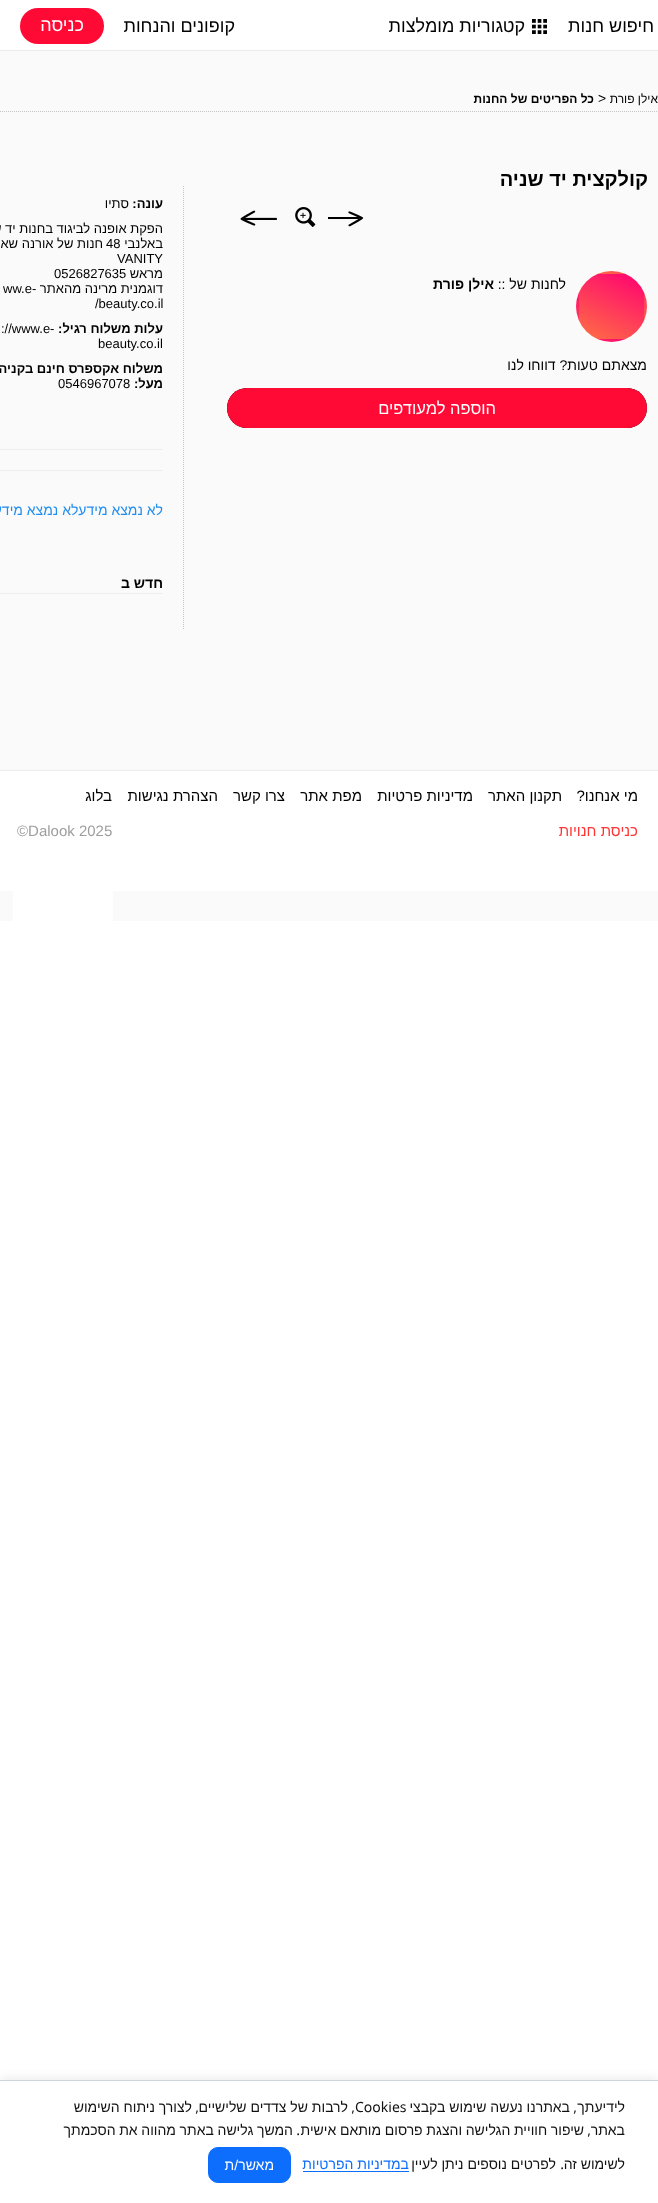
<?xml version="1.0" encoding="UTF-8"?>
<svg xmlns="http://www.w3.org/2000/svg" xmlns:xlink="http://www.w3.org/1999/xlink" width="658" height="2203">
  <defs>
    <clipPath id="clip1"><rect x="576" y="271" width="71" height="71" rx="35.5" /></clipPath>
    <linearGradient id="g1" gradientUnits="userSpaceOnUse" x1="631" y1="202" x2="592" y2="281"><stop offset="0" stop-color="#ff0072" /><stop offset="1" stop-color="#ff7044" /></linearGradient>
    <linearGradient id="g2" gradientUnits="userSpaceOnUse" x1="566" y1="267" x2="527" y2="346"><stop offset="0" stop-color="#ff0072" /><stop offset="1" stop-color="#ff7044" /></linearGradient>
    <linearGradient id="g3" gradientUnits="userSpaceOnUse" x1="631" y1="267" x2="592" y2="346"><stop offset="0" stop-color="#ff0072" /><stop offset="1" stop-color="#ff7044" /></linearGradient>
    <linearGradient id="g4" gradientUnits="userSpaceOnUse" x1="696" y1="267" x2="657" y2="346"><stop offset="0" stop-color="#ff0072" /><stop offset="1" stop-color="#ff7044" /></linearGradient>
    <linearGradient id="g5" gradientUnits="userSpaceOnUse" x1="631" y1="332" x2="592" y2="411"><stop offset="0" stop-color="#ff0072" /><stop offset="1" stop-color="#ff7044" /></linearGradient>
  </defs>
  <rect width="100%" height="100%" fill="#ffffff" />
  <rect y="51" width="658" height="870" fill="#fafafa" />
  <rect y="50" width="658" height="1" fill="#ececec" />
  <image x="532" y="19" width="15" height="15" xlink:href="image1.png" />
  <rect x="20" y="8" width="84" height="36" rx="18" fill="#ff0935" />
  <path d="M -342 111.5 h 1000" fill="none" stroke="#c5c5c5" stroke-dasharray="1 1" />
  <image x="328" y="211" width="36" height="16" xlink:href="image2.png" />
  <image x="295" y="207" width="21" height="20" xlink:href="image3.png" />
  <image x="240" y="210" width="37" height="16" xlink:href="image4.png" />
  <g clip-path="url(#clip1)">
    <rect x="597" y="271" width="29" height="3" fill="url(#g1)" />
    <rect x="576" y="292" width="3" height="29" fill="url(#g2)" />
    <rect x="579" y="274" width="65" height="65" fill="url(#g3)" />
    <rect x="644" y="292" width="3" height="29" fill="url(#g4)" />
    <rect x="597" y="339" width="29" height="3" fill="url(#g5)" />
  </g>
  <rect x="227" y="388" width="420" height="40" rx="20" fill="#000000" filter="blur(0.5px)" />
  <rect x="227" y="388" width="420" height="40" rx="20" fill="#ff0935" />
  <path d="M 183.5 186 v 444" fill="none" stroke="#c5c5c5" stroke-dasharray="1 1" />
  <rect y="449" width="163" height="1" fill="#eeeeee" />
  <rect y="470" width="163" height="1" fill="#eeeeee" />
  <rect y="593" width="163" height="1" fill="#eeeeee" />
  <rect y="771" width="658" height="120" fill="#ffffff" />
  <rect y="770" width="658" height="1" fill="#ececec" />
  <rect x="13" y="891" width="100" height="30" fill="#ffffff" />
  <rect y="2078" width="658" height="123" fill="#000000" fill-opacity="0.08" filter="blur(5px)" />
  <rect y="2081" width="658" height="122" fill="#ffffff" />
  <rect y="2080" width="658" height="1" fill="#d0d5dd" />
  <rect x="303" y="2171" width="106" height="1" fill="#0d6efd" />
  <rect x="208.5" y="2147.5" width="82" height="35" rx="9.5" fill="#0d6efd" stroke="#0d6efd" />
  <text x="654" y="32" style="font-family: Liberation Sans; font-size: 18px; direction: rtl; fill: #000000">חיפוש חנות</text>
  <text x="525" y="32" style="font-family: Liberation Sans; font-size: 18px; direction: rtl; fill: #000000">קטגוריות מומלצות</text>
  <text x="235" y="32" style="font-family: Liberation Sans; font-size: 18px; direction: rtl; fill: #000000">קופונים והנחות</text>
  <text x="84" y="31" style="font-family: Liberation Sans; font-size: 18px; direction: rtl; fill: #ffffff">כניסה</text>
  <text x="658" y="103" style="font-family: Liberation Sans; font-size: 12px; direction: rtl; fill: #000000">אילן פורת</text>
  <text x="598" y="103" style="font-family: Liberation Sans; font-size: 14px; fill: #000000">&gt;</text>
  <text x="594" y="103" style="font-family: Liberation Sans; font-size: 12px; font-weight: bold; direction: rtl; fill: #000000">כל הפריטים של החנות</text>
  <text x="648" y="186" style="font-family: Liberation Sans; font-size: 20px; font-weight: bold; direction: rtl; fill: #000000">קולקצית יד שניה</text>
  <text x="566" y="289" style="font-family: Liberation Sans; font-size: 14px; direction: rtl; fill: #000000">לחנות של ::</text>
  <text x="494" y="289" style="font-family: Liberation Sans; font-size: 14px; font-weight: bold; direction: rtl; fill: #000000">אילן פורת</text>
  <text x="647" y="370" style="font-family: Liberation Sans; font-size: 14px; direction: rtl; fill: #000000">מצאתם טעות? דווחו לנו</text>
  <text x="496" y="414" style="font-family: Liberation Sans; font-size: 16.5px; direction: rtl; fill: #ffffff">הוספה למעודפים</text>
  <text x="163" y="208" style="font-family: Liberation Sans; font-size: 13px; font-weight: bold; direction: rtl; fill: #000000">עונה:</text>
  <text x="129" y="208" style="font-family: Liberation Sans; font-size: 13px; direction: rtl; fill: #000000">סתיו</text>
  <text x="163" y="233" style="font-family: Liberation Sans; font-size: 13px; direction: rtl; fill: #000000">הפקת אופנה לביגוד בחנות יד שניה</text>
  <text x="163" y="248" style="font-family: Liberation Sans; font-size: 13px; direction: rtl; fill: #000000">באלנבי</text>
  <text x="106" y="248" style="font-family: Liberation Sans; font-size: 13px; fill: #000000">48</text>
  <text x="103" y="248" style="font-family: Liberation Sans; font-size: 13px; direction: rtl; fill: #000000">חנות של אורנה שאול -</text>
  <text x="117" y="263" style="font-family: Liberation Sans; font-size: 13px; fill: #000000">VANITY</text>
  <text x="163" y="278" style="font-family: Liberation Sans; font-size: 13px; direction: rtl; fill: #000000">מראש</text>
  <text x="54" y="278" style="font-family: Liberation Sans; font-size: 13px; fill: #000000">0526827635</text>
  <text x="163" y="293" style="font-family: Liberation Sans; font-size: 13px; direction: rtl; fill: #000000">דוגמנית מרינה מהאתר</text>
  <text x="3" y="293" style="font-family: Liberation Sans; font-size: 13px; fill: #000000">ww.e-</text>
  <text x="95" y="308" style="font-family: Liberation Sans; font-size: 13px; fill: #000000">/beauty.co.il</text>
  <text x="163" y="333" style="font-family: Liberation Sans; font-size: 13px; font-weight: bold; direction: rtl; fill: #000000">עלות משלוח רגיל:</text>
  <text x="1" y="333" style="font-family: Liberation Sans; font-size: 13px; fill: #000000">://www.e-</text>
  <text x="98" y="348" style="font-family: Liberation Sans; font-size: 13px; fill: #000000">beauty.co.il</text>
  <text x="163" y="373" style="font-family: Liberation Sans; font-size: 13px; font-weight: bold; direction: rtl; fill: #000000">משלוח אקספרס חינם בקניה</text>
  <text x="163" y="388" style="font-family: Liberation Sans; font-size: 13px; font-weight: bold; direction: rtl; fill: #000000">מעל:</text>
  <text x="58" y="388" style="font-family: Liberation Sans; font-size: 13px; fill: #000000">0546967078</text>
  <text x="163" y="515" style="font-family: Liberation Sans; font-size: 14px; direction: rtl; fill: #218eef">לא נמצא מידעלא נמצא מידע</text>
  <text x="163" y="588" style="font-family: Liberation Sans; font-size: 14px; font-weight: bold; direction: rtl; fill: #000000">חדש ב</text>
  <text x="638" y="801" style="font-family: Liberation Sans; font-size: 15px; direction: rtl; fill: #000000">מי אנחנו?</text>
  <text x="562" y="801" style="font-family: Liberation Sans; font-size: 15px; direction: rtl; fill: #000000">תקנון האתר</text>
  <text x="473" y="801" style="font-family: Liberation Sans; font-size: 15px; direction: rtl; fill: #000000">מדיניות פרטיות</text>
  <text x="362" y="801" style="font-family: Liberation Sans; font-size: 15px; direction: rtl; fill: #000000">מפת אתר</text>
  <text x="285" y="801" style="font-family: Liberation Sans; font-size: 15px; direction: rtl; fill: #000000">צרו קשר</text>
  <text x="218" y="801" style="font-family: Liberation Sans; font-size: 15px; direction: rtl; fill: #000000">הצהרת נגישות</text>
  <text x="112" y="801" style="font-family: Liberation Sans; font-size: 15px; direction: rtl; fill: #000000">בלוג</text>
  <text x="638" y="836" style="font-family: Liberation Sans; font-size: 15px; direction: rtl; fill: #ff3434">כניסת חנויות</text>
  <text x="17" y="836" style="font-family: Liberation Sans; font-size: 15px; fill: #9e9c9c">©Dalook 2025</text>
  <text x="625" y="2112" style="font-family: Liberation Sans; font-size: 14px; direction: rtl; fill: #111111">לידיעתך</text>
  <text x="577" y="2112" style="font-family: Noto Sans; font-size: 14px; direction: rtl; fill: #111111">,</text>
  <text x="570" y="2112" style="font-family: Liberation Sans; font-size: 14px; direction: rtl; fill: #111111">באתרנו נעשה שימוש בקבצי</text>
  <text x="355" y="2112" style="font-family: Noto Sans; font-size: 14px; fill: #111111">Cookies</text>
  <text x="355" y="2112" style="font-family: Noto Sans; font-size: 14px; direction: rtl; fill: #111111">,</text>
  <text x="348" y="2112" style="font-family: Liberation Sans; font-size: 14px; direction: rtl; fill: #111111">לרבות של צדדים שלישיים</text>
  <text x="199" y="2112" style="font-family: Noto Sans; font-size: 14px; direction: rtl; fill: #111111">,</text>
  <text x="192" y="2112" style="font-family: Liberation Sans; font-size: 14px; direction: rtl; fill: #111111">לצורך ניתוח השימוש</text>
  <text x="625" y="2135" style="font-family: Liberation Sans; font-size: 14px; direction: rtl; fill: #111111">באתר</text>
  <text x="591" y="2135" style="font-family: Noto Sans; font-size: 14px; direction: rtl; fill: #111111">,</text>
  <text x="584" y="2135" word-spacing="-0.25" style="font-family: Liberation Sans; font-size: 14px; direction: rtl; fill: #111111">שיפור חוויית הגלישה והצגת פרסום מותאם אישית</text>
  <text x="300" y="2135" style="font-family: Noto Sans; font-size: 14px; direction: rtl; fill: #111111">.</text>
  <text x="293" y="2135" word-spacing="-0.25" style="font-family: Liberation Sans; font-size: 14px; direction: rtl; fill: #111111">המשך גלישה באתר מהווה את הסכמתך</text>
  <text x="625" y="2169" style="font-family: Liberation Sans; font-size: 14px; direction: rtl; fill: #111111">לשימוש זה</text>
  <text x="564" y="2169" style="font-family: Noto Sans; font-size: 14px; direction: rtl; fill: #111111">.</text>
  <text x="556" y="2169" style="font-family: Liberation Sans; font-size: 14px; direction: rtl; fill: #111111">לפרטים נוספים ניתן לעיין</text>
  <text x="409" y="2169" style="font-family: Liberation Sans; font-size: 14px; direction: rtl; fill: #0d6efd">במדיניות הפרטיות</text>
  <text x="274" y="2170" style="font-family: Liberation Sans; font-size: 14px; direction: rtl; fill: #ffffff">מאשר/ת</text>
</svg>
